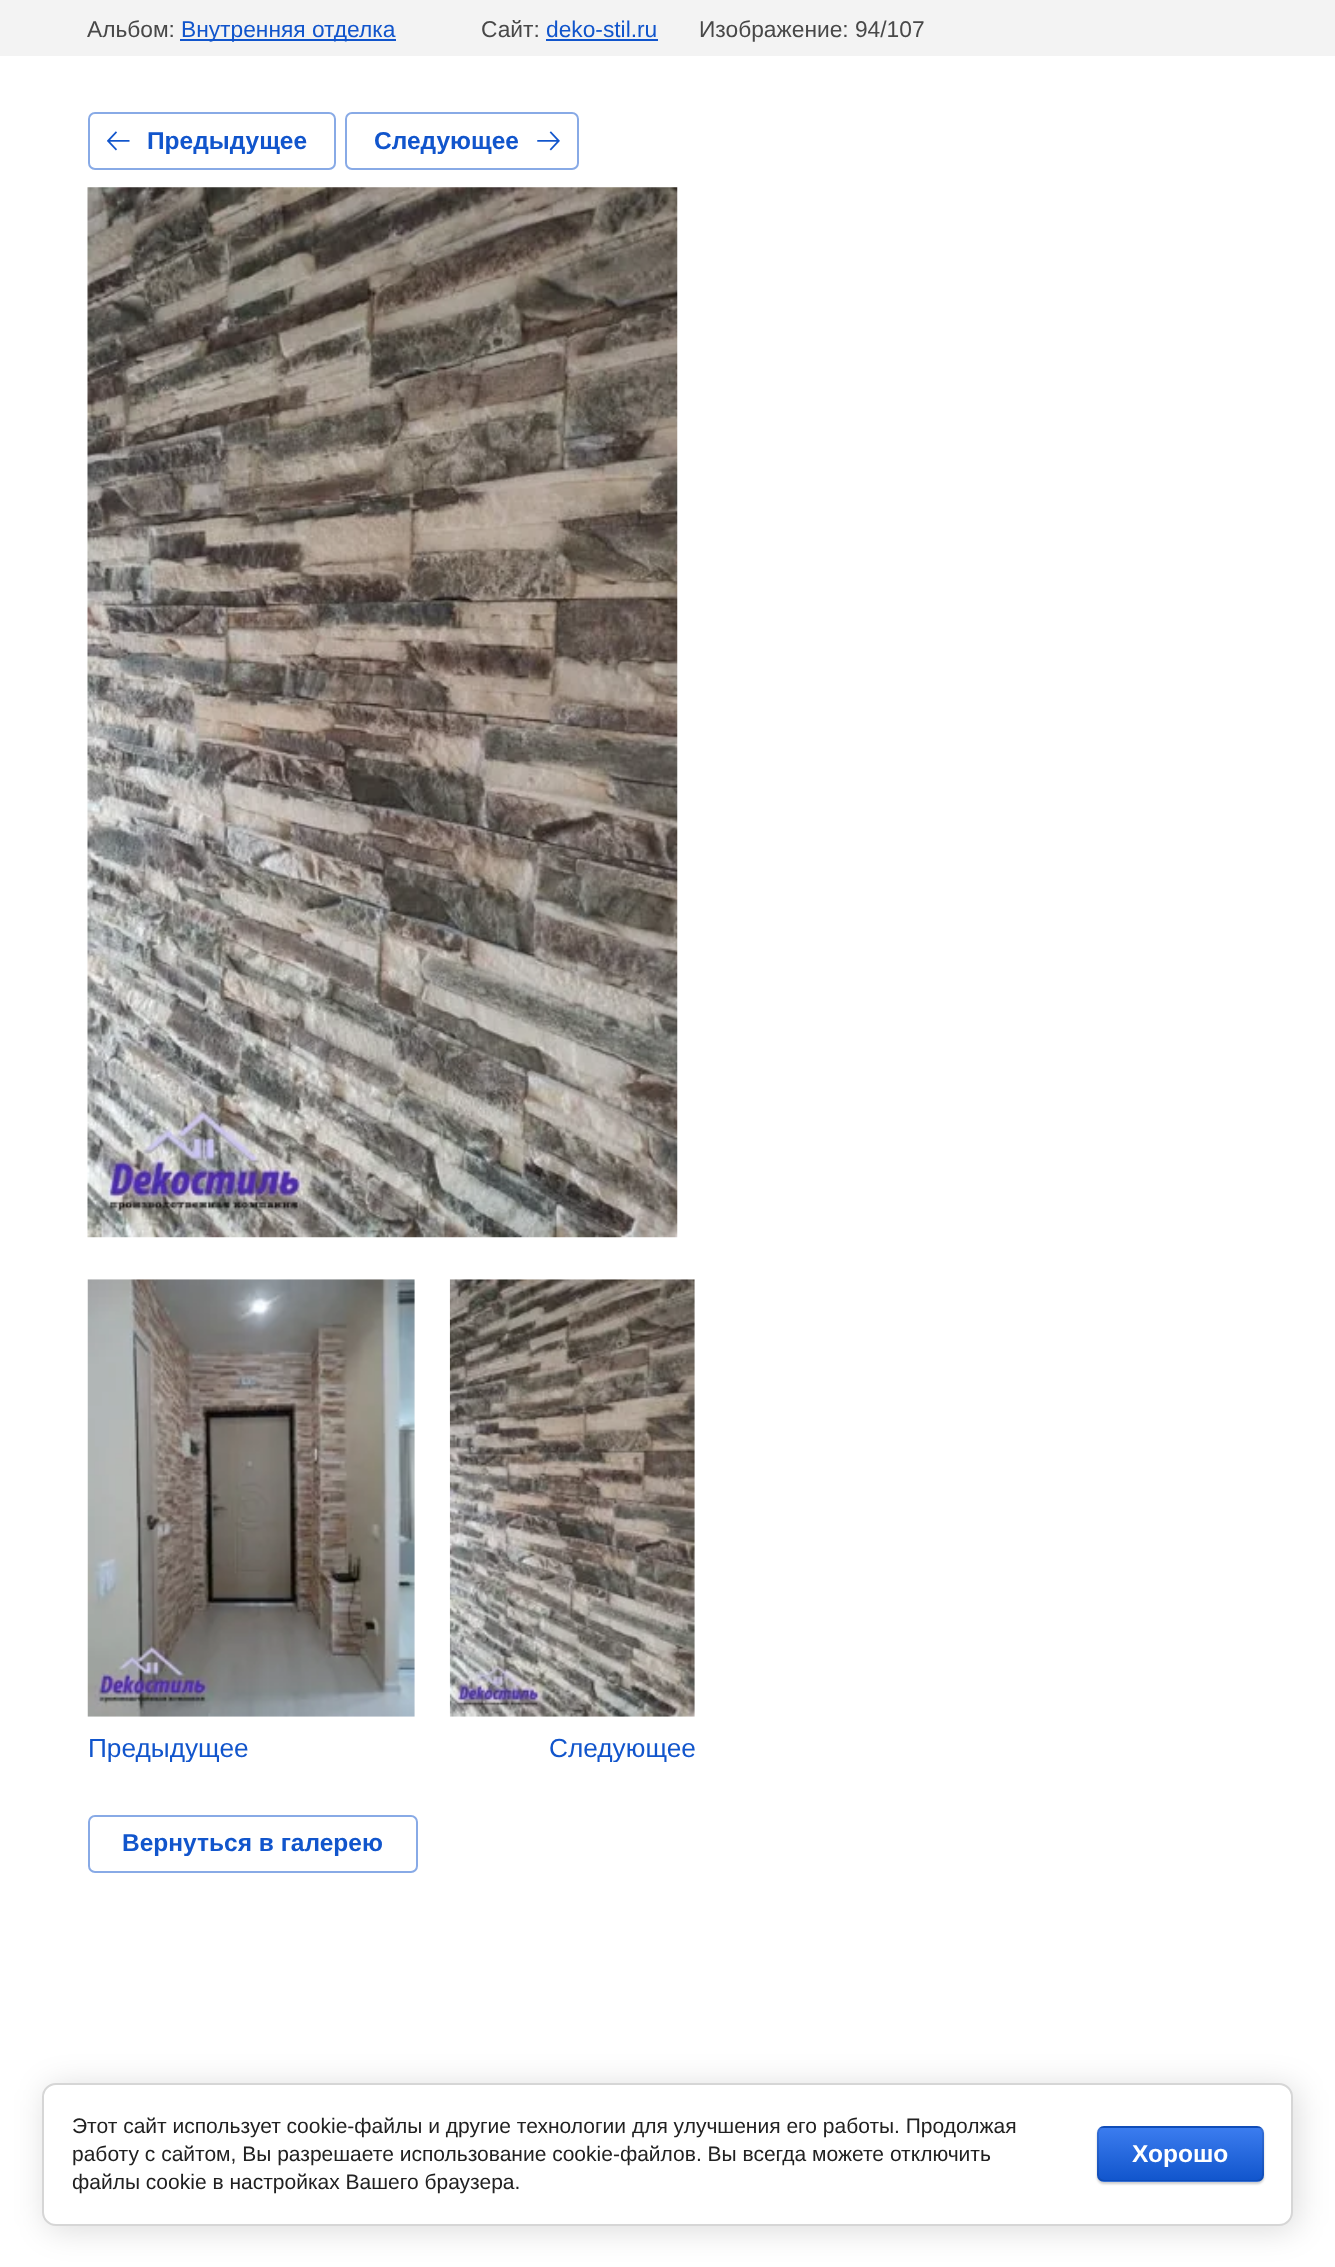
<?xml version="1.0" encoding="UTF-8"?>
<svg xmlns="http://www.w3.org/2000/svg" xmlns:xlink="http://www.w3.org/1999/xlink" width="1335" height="2267">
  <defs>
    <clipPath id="clip1"><rect x="1097" y="2126" width="167" height="56" rx="7" /></clipPath>
    <linearGradient id="g1" gradientUnits="userSpaceOnUse" x1="1180" y1="2076" x2="1180" y2="2128"><stop offset="0" stop-color="#3b7cef" /><stop offset="1" stop-color="#1155cc" /></linearGradient>
    <linearGradient id="g2" gradientUnits="userSpaceOnUse" x1="1180" y1="2128" x2="1180" y2="2181"><stop offset="0" stop-color="#3b7cef" /><stop offset="1" stop-color="#1155cc" /></linearGradient>
    <linearGradient id="g3" gradientUnits="userSpaceOnUse" x1="1180" y1="2181" x2="1180" y2="2233"><stop offset="0" stop-color="#3b7cef" /><stop offset="1" stop-color="#1155cc" /></linearGradient>
    <clipPath id="clip2"><rect x="88" y="1279" width="327" height="483" /></clipPath>
    <clipPath id="clip3"><rect x="450" y="1279" width="245" height="483" /></clipPath>
  </defs>
  <rect width="100%" height="100%" fill="#ffffff" />
  <rect width="1335" height="56" fill="#f3f3f3" />
  <rect x="180" y="39" width="216" height="2" fill="#1155cc" />
  <rect x="546" y="39" width="112" height="2" fill="#1155cc" />
  <rect x="89" y="113" width="246" height="56" rx="6" fill="none" stroke="#88aae6" stroke-width="2" />
  <image x="107" y="131" width="23" height="20" xlink:href="image1.png" />
  <rect x="346" y="113" width="232" height="56" rx="6" fill="none" stroke="#88aae6" stroke-width="2" />
  <image x="537" y="131" width="23" height="20" xlink:href="image2.png" />
  <image x="87" y="187" width="591" height="1051" xlink:href="image3.png" />
  <image x="87" y="1279" width="328" height="438" xlink:href="image4.png" />
  <image x="449" y="1279" width="246" height="438" xlink:href="image5.png" />
  <rect x="89" y="1816" width="328" height="56" rx="6" fill="none" stroke="#88aae6" stroke-width="2" />
  <rect x="46" y="2086" width="1251" height="144" rx="14" fill="#000000" fill-opacity="0.14" filter="blur(16px)" />
  <rect x="43" y="2084" width="1249" height="141" rx="13" fill="#ffffff" stroke="#d6d6d6" stroke-width="2" />
  <rect x="1097" y="2128" width="167" height="56" rx="7" fill="#000000" fill-opacity="0.2" filter="blur(1px)" />
  <g clip-path="url(#clip1)">
    <rect x="1097" y="2126" width="167" height="2" fill="url(#g1)" />
    <rect x="1097" y="2128" width="167" height="53" fill="url(#g2)" />
    <rect x="1097" y="2181" width="167" height="1" fill="url(#g3)" />
  </g>
  <rect x="1098" y="2127" width="165" height="54" rx="6" fill="none" stroke="#000000" stroke-opacity="0.1" stroke-width="2" />
  <text x="87" y="37" style="font-family: Liberation Sans; font-size: 22.75px; fill: #484848">Альбом:</text>
  <text x="181" y="37" style="font-family: Liberation Sans; font-size: 22.75px; fill: #1155cc">Внутренняя отделка</text>
  <text x="481" y="37" style="font-family: Liberation Sans; font-size: 22.75px; fill: #484848">Сайт:</text>
  <text x="546" y="37" style="font-family: Liberation Sans; font-size: 22.75px; fill: #1155cc">deko-stil.ru</text>
  <text x="699" y="37" style="font-family: Liberation Sans; font-size: 22.75px; fill: #484848">Изображение: 94/107</text>
  <text x="147" y="149" style="font-family: Liberation Sans; font-size: 24.5px; font-weight: bold; fill: #1155cc">Предыдущее</text>
  <text x="374" y="149" style="font-family: Liberation Sans; font-size: 24.5px; font-weight: bold; fill: #1155cc">Следующее</text>
  <g clip-path="url(#clip2)">
    <text x="88" y="1757" style="font-family: Liberation Sans; font-size: 26.25px; fill: #1155cc">Предыдущее</text>
  </g>
  <g clip-path="url(#clip3)">
    <text x="549" y="1757" style="font-family: Liberation Sans; font-size: 26.25px; fill: #1155cc">Следующее</text>
  </g>
  <text x="122" y="1851" style="font-family: Liberation Sans; font-size: 24.5px; font-weight: bold; fill: #1155cc">Вернуться в галерею</text>
  <text x="72" y="2133" style="font-family: Liberation Sans; font-size: 21px; fill: #212121">Этот сайт использует cookie-файлы и другие технологии для улучшения его работы. Продолжая</text>
  <text x="72" y="2161" style="font-family: Liberation Sans; font-size: 21px; fill: #212121">работу с сайтом, Вы разрешаете использование cookie-файлов. Вы всегда можете отключить</text>
  <text x="72" y="2189" style="font-family: Liberation Sans; font-size: 21px; fill: #212121">файлы cookie в настройках Вашего браузера.</text>
  <text x="1132" y="2162" style="font-family: Liberation Sans; font-size: 24.5px; font-weight: bold; fill: #ffffff">Хорошо</text>
</svg>
